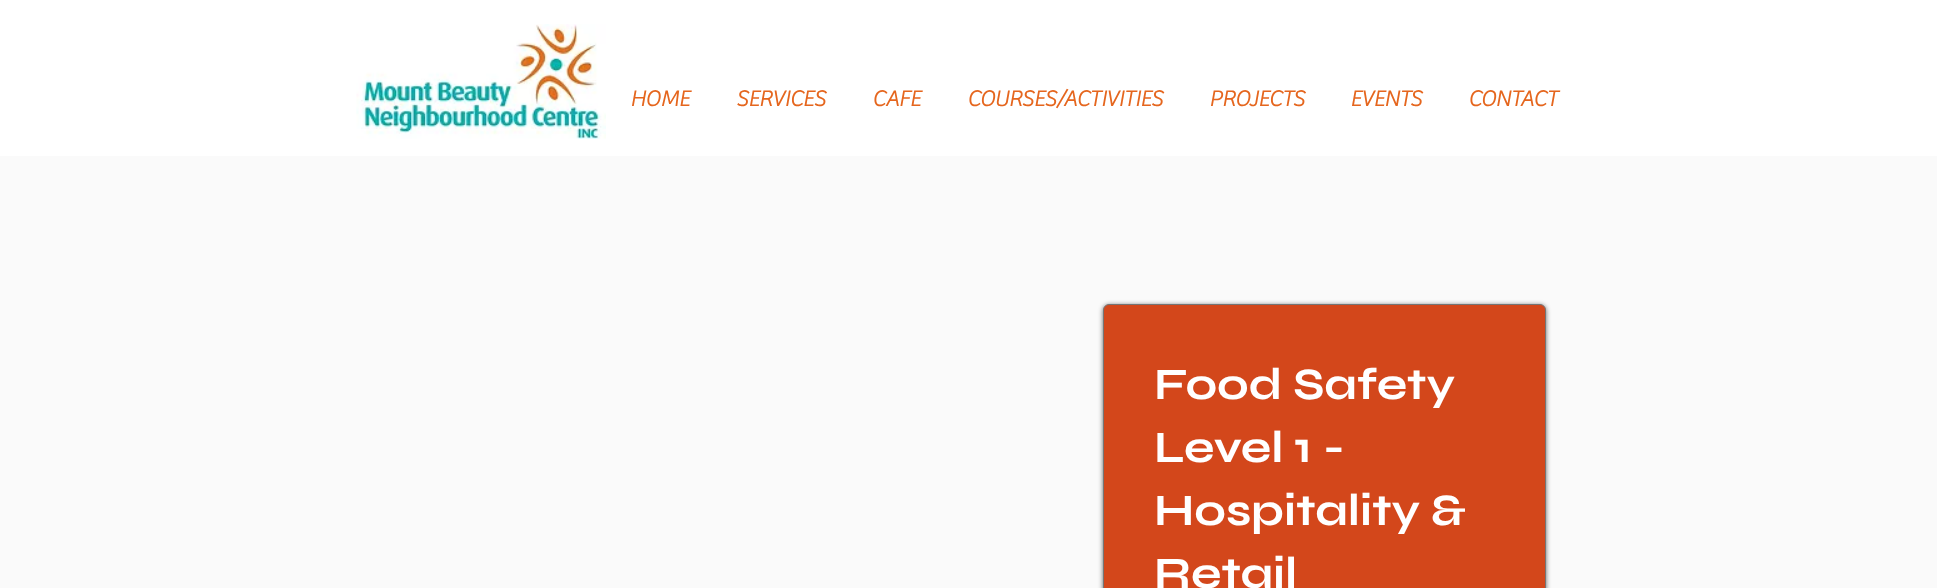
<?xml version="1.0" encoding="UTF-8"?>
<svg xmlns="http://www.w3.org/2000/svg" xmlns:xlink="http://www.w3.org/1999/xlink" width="1937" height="588">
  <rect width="100%" height="100%" fill="#ffffff" />
  <image x="356" y="24" width="250" height="115" xlink:href="image1.png" />
  <rect y="156" width="1937" height="432" fill="#fafafa" />
  <rect x="1103" y="305" width="443" height="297" rx="6" fill="#000000" fill-opacity="0.6" filter="blur(2.5px)" />
  <rect x="1103.5" y="304.5" width="442" height="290" rx="5.5" fill="#d3471b" stroke="#757575" />
  <text x="630" y="106" style="font-family: 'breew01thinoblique'; font-size: 22.5px; font-weight: bold; fill: #e5661e">HOME</text>
  <text x="736" y="106" style="font-family: 'breew01thinoblique'; font-size: 22.5px; font-weight: bold; fill: #e5661e">SERVICES</text>
  <text x="872" y="106" style="font-family: 'breew01thinoblique'; font-size: 22.5px; font-weight: bold; fill: #e5661e">CAFE</text>
  <text x="967" y="106" style="font-family: 'breew01thinoblique'; font-size: 22.5px; font-weight: bold; fill: #e5661e">COURSES/ACTIVITIES</text>
  <text x="1209" y="106" style="font-family: 'breew01thinoblique'; font-size: 22.5px; font-weight: bold; fill: #e5661e">PROJECTS</text>
  <text x="1350" y="106" style="font-family: 'breew01thinoblique'; font-size: 22.5px; font-weight: bold; fill: #e5661e">EVENTS</text>
  <text x="1468" y="106" style="font-family: 'breew01thinoblique'; font-size: 22.5px; font-weight: bold; fill: #e5661e">CONTACT</text>
  <text x="1154" y="399" style="font-family: Syne; font-size: 45px; font-weight: bold; fill: #ffffff">Food Safety</text>
  <text x="1154" y="462" style="font-family: Syne; font-size: 45px; font-weight: bold; fill: #ffffff">Level 1 -</text>
  <text x="1154" y="525" style="font-family: Syne; font-size: 45px; font-weight: bold; fill: #ffffff">Hospitality &amp;</text>
  <text x="1154" y="588" style="font-family: Syne; font-size: 45px; font-weight: bold; fill: #ffffff">Retail</text>
</svg>
